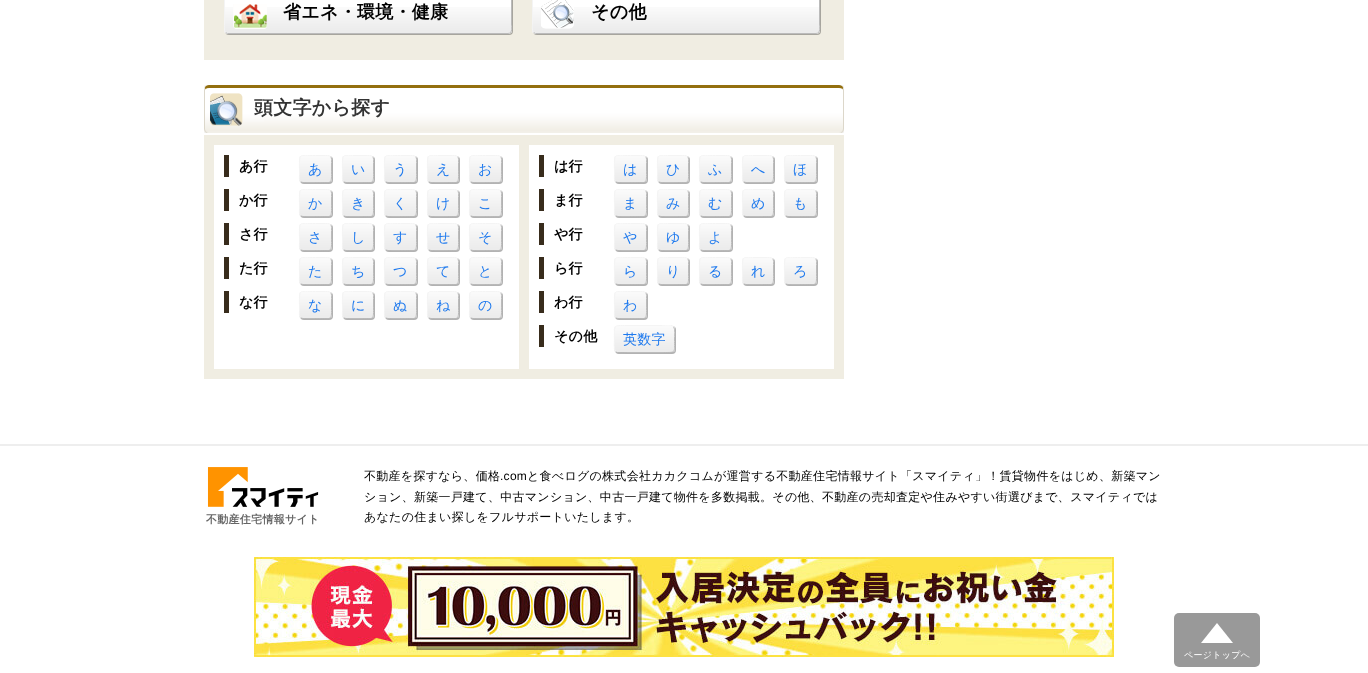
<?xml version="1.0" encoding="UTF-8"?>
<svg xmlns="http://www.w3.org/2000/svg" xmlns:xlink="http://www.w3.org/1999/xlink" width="1368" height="673">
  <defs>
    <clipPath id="clip1"><rect x="224" width="620" height="40" /></clipPath>
    <clipPath id="clip2"><rect x="224" y="155" width="285" height="34" /></clipPath>
    <clipPath id="clip3"><rect x="224" y="189" width="285" height="34" /></clipPath>
    <clipPath id="clip4"><rect x="224" y="223" width="285" height="34" /></clipPath>
    <clipPath id="clip5"><rect x="224" y="257" width="285" height="34" /></clipPath>
    <clipPath id="clip6"><rect x="224" y="291" width="285" height="34" /></clipPath>
    <clipPath id="clip7"><rect x="539" y="155" width="285" height="34" /></clipPath>
    <clipPath id="clip8"><rect x="539" y="189" width="285" height="34" /></clipPath>
    <clipPath id="clip9"><rect x="539" y="223" width="285" height="34" /></clipPath>
    <clipPath id="clip10"><rect x="539" y="257" width="285" height="34" /></clipPath>
    <clipPath id="clip11"><rect x="539" y="291" width="285" height="34" /></clipPath>
    <clipPath id="clip12"><rect x="539" y="325" width="285" height="34" /></clipPath>
  </defs>
  <rect width="100%" height="100%" fill="#ffffff" />
  <rect x="204" width="640" height="60" fill="#f0ede2" />
  <rect x="225" y="-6" width="288" height="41" rx="4" fill="#000000" fill-opacity="0.3" filter="blur(0.5px)" />
  <rect x="224" y="-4" width="288" height="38" rx="4" fill="#ffffff" />
  <image x="224" y="7" width="288" height="26" xlink:href="image1.png" />
  <path d="M 510.5 -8.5 c 2 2 1 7 1 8.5 v 24 c 0 2.5 1.5 9.5 -3.5 9.5 h -280.5 l -2 -1" fill="none" stroke="#bbbbbb" />
  <g clip-path="url(#clip1)">
    <path d="M 225.5 32.5 c -2 -2 -1 -7 -1 -8.5 v -24 c 0 -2.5 -1.5 -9.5 3.5 -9.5 h 280.5 l 2 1" fill="none" stroke="#f4f4f4" />
  </g>
  <image x="233" y="4" width="34" height="25" xlink:href="image2.png" />
  <rect x="533" y="-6" width="288" height="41" rx="4" fill="#000000" fill-opacity="0.3" filter="blur(0.5px)" />
  <rect x="532" y="-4" width="288" height="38" rx="4" fill="#ffffff" />
  <image x="532" y="7" width="288" height="26" xlink:href="image1.png" />
  <path d="M 818.5 -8.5 c 2 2 1 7 1 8.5 v 24 c 0 2.5 1.5 9.5 -3.5 9.5 h -280.5 l -2 -1" fill="none" stroke="#bbbbbb" />
  <path d="M 533.5 32.5 c -2 -2 -1 -7 -1 -8.5 v -24 c 0 -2.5 -1.5 -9.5 3.5 -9.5 h 280.5 l 2 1" fill="none" stroke="#f4f4f4" />
  <image x="541" y="0" width="33" height="29" xlink:href="image3.png" />
  <image x="204" y="85" width="640" height="48" xlink:href="image4.png" />
  <rect x="204" y="135" width="640" height="244" fill="#f0ede2" />
  <rect x="214" y="145" width="305" height="224" fill="#ffffff" />
  <rect x="224" y="155" width="5" height="22" fill="#382c1c" />
  <rect x="300" y="156" width="33" height="28" rx="4" fill="#000000" fill-opacity="0.3" filter="blur(0.5px)" />
  <image x="299" y="156" width="33" height="26" xlink:href="image5.png" />
  <path d="M 330.5 156.5 c 1.5 1.5 1 4 1 6 v 6.5 c 0 16.5 1.5 13.5 -16 13.5 h -8.5 c -2 0 -5 0.5 -6.5 -1" fill="none" stroke="#bbbbbb" />
  <g clip-path="url(#clip2)">
    <path d="M 300.5 181.5 c -1.5 -1.5 -1 -4 -1 -6 v -6.5 c 0 -16.5 -1.5 -13.5 16 -13.5 h 8.5 c 2 0 5 -0.5 6.5 1" fill="none" stroke="#f4f4f4" />
  </g>
  <rect x="343" y="156" width="32" height="28" rx="4" fill="#000000" fill-opacity="0.3" filter="blur(0.5px)" />
  <image x="342" y="156" width="32" height="26" xlink:href="image6.png" />
  <path d="M 372.5 156.5 c 1.5 1.5 1 4 1 6 v 6.5 c 0 16.5 1.5 13.5 -15.5 13.5 h -8 c -2 0 -5 0.5 -6.5 -1" fill="none" stroke="#bbbbbb" />
  <g clip-path="url(#clip2)">
    <path d="M 343.5 181.5 c -1.5 -1.5 -1 -4 -1 -6 v -6.5 c 0 -16.5 -1.5 -13.5 15.5 -13.5 h 8 c 2 0 5 -0.5 6.5 1" fill="none" stroke="#f4f4f4" />
  </g>
  <rect x="385" y="156" width="33" height="28" rx="4" fill="#000000" fill-opacity="0.3" filter="blur(0.5px)" />
  <image x="384" y="156" width="33" height="26" xlink:href="image5.png" />
  <path d="M 415.5 156.5 c 1.5 1.5 1 4 1 6 v 6.5 c 0 16.5 1.5 13.5 -16 13.5 h -8.5 c -2 0 -5 0.5 -6.5 -1" fill="none" stroke="#bbbbbb" />
  <g clip-path="url(#clip2)">
    <path d="M 385.5 181.5 c -1.5 -1.5 -1 -4 -1 -6 v -6.5 c 0 -16.5 -1.5 -13.5 16 -13.5 h 8.5 c 2 0 5 -0.5 6.5 1" fill="none" stroke="#f4f4f4" />
  </g>
  <rect x="428" y="156" width="32" height="28" rx="4" fill="#000000" fill-opacity="0.3" filter="blur(0.5px)" />
  <image x="427" y="156" width="32" height="26" xlink:href="image6.png" />
  <path d="M 457.5 156.5 c 1.5 1.5 1 4 1 6 v 6.5 c 0 16.5 1.5 13.5 -15.5 13.5 h -8 c -2 0 -5 0.5 -6.5 -1" fill="none" stroke="#bbbbbb" />
  <g clip-path="url(#clip2)">
    <path d="M 428.5 181.5 c -1.5 -1.5 -1 -4 -1 -6 v -6.5 c 0 -16.5 -1.5 -13.5 15.5 -13.5 h 8 c 2 0 5 -0.5 6.5 1" fill="none" stroke="#f4f4f4" />
  </g>
  <rect x="470" y="156" width="33" height="28" rx="4" fill="#000000" fill-opacity="0.3" filter="blur(0.5px)" />
  <image x="469" y="156" width="33" height="26" xlink:href="image5.png" />
  <path d="M 500.5 156.5 c 1.5 1.5 1 4 1 6 v 6.5 c 0 16.5 1.5 13.5 -16 13.5 h -8.5 c -2 0 -5 0.5 -6.5 -1" fill="none" stroke="#bbbbbb" />
  <g clip-path="url(#clip2)">
    <path d="M 470.5 181.5 c -1.5 -1.5 -1 -4 -1 -6 v -6.5 c 0 -16.5 -1.5 -13.5 16 -13.5 h 8.5 c 2 0 5 -0.5 6.5 1" fill="none" stroke="#f4f4f4" />
  </g>
  <rect x="224" y="189" width="5" height="22" fill="#382c1c" />
  <rect x="300" y="190" width="33" height="28" rx="4" fill="#000000" fill-opacity="0.3" filter="blur(0.5px)" />
  <image x="299" y="190" width="33" height="26" xlink:href="image5.png" />
  <path d="M 330.5 190.5 c 1.5 1.5 1 4 1 6 v 6.5 c 0 16.5 1.5 13.5 -16 13.5 h -8.5 c -2 0 -5 0.5 -6.5 -1" fill="none" stroke="#bbbbbb" />
  <g clip-path="url(#clip3)">
    <path d="M 300.5 215.5 c -1.5 -1.5 -1 -4 -1 -6 v -6.5 c 0 -16.5 -1.5 -13.5 16 -13.5 h 8.5 c 2 0 5 -0.5 6.5 1" fill="none" stroke="#f4f4f4" />
  </g>
  <rect x="343" y="190" width="32" height="28" rx="4" fill="#000000" fill-opacity="0.3" filter="blur(0.5px)" />
  <image x="342" y="190" width="32" height="26" xlink:href="image6.png" />
  <path d="M 372.5 190.5 c 1.5 1.5 1 4 1 6 v 6.5 c 0 16.5 1.5 13.5 -15.5 13.5 h -8 c -2 0 -5 0.5 -6.5 -1" fill="none" stroke="#bbbbbb" />
  <g clip-path="url(#clip3)">
    <path d="M 343.5 215.5 c -1.5 -1.5 -1 -4 -1 -6 v -6.5 c 0 -16.5 -1.5 -13.5 15.5 -13.5 h 8 c 2 0 5 -0.5 6.5 1" fill="none" stroke="#f4f4f4" />
  </g>
  <rect x="385" y="190" width="33" height="28" rx="4" fill="#000000" fill-opacity="0.3" filter="blur(0.5px)" />
  <image x="384" y="190" width="33" height="26" xlink:href="image5.png" />
  <path d="M 415.5 190.5 c 1.5 1.5 1 4 1 6 v 6.5 c 0 16.5 1.5 13.5 -16 13.5 h -8.5 c -2 0 -5 0.5 -6.5 -1" fill="none" stroke="#bbbbbb" />
  <g clip-path="url(#clip3)">
    <path d="M 385.5 215.5 c -1.5 -1.5 -1 -4 -1 -6 v -6.5 c 0 -16.5 -1.5 -13.5 16 -13.5 h 8.5 c 2 0 5 -0.5 6.5 1" fill="none" stroke="#f4f4f4" />
  </g>
  <rect x="428" y="190" width="32" height="28" rx="4" fill="#000000" fill-opacity="0.3" filter="blur(0.5px)" />
  <image x="427" y="190" width="32" height="26" xlink:href="image6.png" />
  <path d="M 457.5 190.5 c 1.5 1.5 1 4 1 6 v 6.5 c 0 16.5 1.5 13.5 -15.5 13.5 h -8 c -2 0 -5 0.5 -6.5 -1" fill="none" stroke="#bbbbbb" />
  <g clip-path="url(#clip3)">
    <path d="M 428.5 215.5 c -1.5 -1.5 -1 -4 -1 -6 v -6.5 c 0 -16.5 -1.5 -13.5 15.5 -13.5 h 8 c 2 0 5 -0.5 6.5 1" fill="none" stroke="#f4f4f4" />
  </g>
  <rect x="470" y="190" width="33" height="28" rx="4" fill="#000000" fill-opacity="0.3" filter="blur(0.5px)" />
  <image x="469" y="190" width="33" height="26" xlink:href="image5.png" />
  <path d="M 500.5 190.5 c 1.5 1.5 1 4 1 6 v 6.5 c 0 16.5 1.5 13.5 -16 13.5 h -8.5 c -2 0 -5 0.5 -6.5 -1" fill="none" stroke="#bbbbbb" />
  <g clip-path="url(#clip3)">
    <path d="M 470.5 215.5 c -1.5 -1.5 -1 -4 -1 -6 v -6.5 c 0 -16.5 -1.5 -13.5 16 -13.5 h 8.5 c 2 0 5 -0.5 6.5 1" fill="none" stroke="#f4f4f4" />
  </g>
  <rect x="224" y="223" width="5" height="22" fill="#382c1c" />
  <rect x="300" y="224" width="33" height="28" rx="4" fill="#000000" fill-opacity="0.3" filter="blur(0.5px)" />
  <image x="299" y="224" width="33" height="26" xlink:href="image5.png" />
  <path d="M 330.5 224.5 c 1.5 1.5 1 4 1 6 v 6.5 c 0 16.5 1.5 13.5 -16 13.5 h -8.5 c -2 0 -5 0.5 -6.5 -1" fill="none" stroke="#bbbbbb" />
  <g clip-path="url(#clip4)">
    <path d="M 300.5 249.5 c -1.5 -1.5 -1 -4 -1 -6 v -6.5 c 0 -16.5 -1.5 -13.5 16 -13.5 h 8.5 c 2 0 5 -0.5 6.5 1" fill="none" stroke="#f4f4f4" />
  </g>
  <rect x="343" y="224" width="32" height="28" rx="4" fill="#000000" fill-opacity="0.3" filter="blur(0.5px)" />
  <image x="342" y="224" width="32" height="26" xlink:href="image6.png" />
  <path d="M 372.5 224.5 c 1.5 1.5 1 4 1 6 v 6.5 c 0 16.5 1.5 13.5 -15.5 13.5 h -8 c -2 0 -5 0.5 -6.5 -1" fill="none" stroke="#bbbbbb" />
  <g clip-path="url(#clip4)">
    <path d="M 343.5 249.5 c -1.5 -1.5 -1 -4 -1 -6 v -6.5 c 0 -16.5 -1.5 -13.5 15.5 -13.5 h 8 c 2 0 5 -0.5 6.5 1" fill="none" stroke="#f4f4f4" />
  </g>
  <rect x="385" y="224" width="33" height="28" rx="4" fill="#000000" fill-opacity="0.3" filter="blur(0.5px)" />
  <image x="384" y="224" width="33" height="26" xlink:href="image5.png" />
  <path d="M 415.5 224.5 c 1.5 1.5 1 4 1 6 v 6.5 c 0 16.5 1.5 13.5 -16 13.5 h -8.5 c -2 0 -5 0.5 -6.5 -1" fill="none" stroke="#bbbbbb" />
  <g clip-path="url(#clip4)">
    <path d="M 385.5 249.5 c -1.5 -1.5 -1 -4 -1 -6 v -6.5 c 0 -16.5 -1.5 -13.5 16 -13.5 h 8.5 c 2 0 5 -0.5 6.5 1" fill="none" stroke="#f4f4f4" />
  </g>
  <rect x="428" y="224" width="32" height="28" rx="4" fill="#000000" fill-opacity="0.3" filter="blur(0.5px)" />
  <image x="427" y="224" width="32" height="26" xlink:href="image6.png" />
  <path d="M 457.5 224.5 c 1.5 1.5 1 4 1 6 v 6.5 c 0 16.5 1.5 13.5 -15.5 13.5 h -8 c -2 0 -5 0.5 -6.5 -1" fill="none" stroke="#bbbbbb" />
  <g clip-path="url(#clip4)">
    <path d="M 428.5 249.5 c -1.5 -1.5 -1 -4 -1 -6 v -6.5 c 0 -16.5 -1.5 -13.5 15.5 -13.5 h 8 c 2 0 5 -0.5 6.5 1" fill="none" stroke="#f4f4f4" />
  </g>
  <rect x="470" y="224" width="33" height="28" rx="4" fill="#000000" fill-opacity="0.3" filter="blur(0.5px)" />
  <image x="469" y="224" width="33" height="26" xlink:href="image5.png" />
  <path d="M 500.5 224.5 c 1.5 1.5 1 4 1 6 v 6.5 c 0 16.5 1.5 13.5 -16 13.5 h -8.5 c -2 0 -5 0.5 -6.5 -1" fill="none" stroke="#bbbbbb" />
  <g clip-path="url(#clip4)">
    <path d="M 470.5 249.5 c -1.5 -1.5 -1 -4 -1 -6 v -6.5 c 0 -16.5 -1.5 -13.5 16 -13.5 h 8.5 c 2 0 5 -0.5 6.5 1" fill="none" stroke="#f4f4f4" />
  </g>
  <rect x="224" y="257" width="5" height="22" fill="#382c1c" />
  <rect x="300" y="258" width="33" height="28" rx="4" fill="#000000" fill-opacity="0.3" filter="blur(0.5px)" />
  <image x="299" y="258" width="33" height="26" xlink:href="image5.png" />
  <path d="M 330.5 258.5 c 1.5 1.5 1 4 1 6 v 6.5 c 0 16.5 1.5 13.5 -16 13.5 h -8.5 c -2 0 -5 0.5 -6.5 -1" fill="none" stroke="#bbbbbb" />
  <g clip-path="url(#clip5)">
    <path d="M 300.5 283.5 c -1.5 -1.5 -1 -4 -1 -6 v -6.5 c 0 -16.5 -1.5 -13.5 16 -13.5 h 8.5 c 2 0 5 -0.5 6.5 1" fill="none" stroke="#f4f4f4" />
  </g>
  <rect x="343" y="258" width="32" height="28" rx="4" fill="#000000" fill-opacity="0.3" filter="blur(0.5px)" />
  <image x="342" y="258" width="32" height="26" xlink:href="image6.png" />
  <path d="M 372.5 258.5 c 1.5 1.5 1 4 1 6 v 6.5 c 0 16.5 1.5 13.5 -15.5 13.5 h -8 c -2 0 -5 0.5 -6.5 -1" fill="none" stroke="#bbbbbb" />
  <g clip-path="url(#clip5)">
    <path d="M 343.5 283.5 c -1.5 -1.5 -1 -4 -1 -6 v -6.5 c 0 -16.5 -1.5 -13.5 15.5 -13.5 h 8 c 2 0 5 -0.5 6.5 1" fill="none" stroke="#f4f4f4" />
  </g>
  <rect x="385" y="258" width="33" height="28" rx="4" fill="#000000" fill-opacity="0.3" filter="blur(0.5px)" />
  <image x="384" y="258" width="33" height="26" xlink:href="image5.png" />
  <path d="M 415.5 258.5 c 1.5 1.5 1 4 1 6 v 6.5 c 0 16.5 1.5 13.5 -16 13.5 h -8.5 c -2 0 -5 0.5 -6.5 -1" fill="none" stroke="#bbbbbb" />
  <g clip-path="url(#clip5)">
    <path d="M 385.5 283.5 c -1.5 -1.5 -1 -4 -1 -6 v -6.5 c 0 -16.5 -1.5 -13.5 16 -13.5 h 8.5 c 2 0 5 -0.5 6.5 1" fill="none" stroke="#f4f4f4" />
  </g>
  <rect x="428" y="258" width="32" height="28" rx="4" fill="#000000" fill-opacity="0.3" filter="blur(0.5px)" />
  <image x="427" y="258" width="32" height="26" xlink:href="image6.png" />
  <path d="M 457.5 258.5 c 1.5 1.5 1 4 1 6 v 6.5 c 0 16.5 1.5 13.5 -15.5 13.5 h -8 c -2 0 -5 0.5 -6.5 -1" fill="none" stroke="#bbbbbb" />
  <g clip-path="url(#clip5)">
    <path d="M 428.5 283.5 c -1.5 -1.5 -1 -4 -1 -6 v -6.5 c 0 -16.5 -1.5 -13.5 15.5 -13.5 h 8 c 2 0 5 -0.5 6.5 1" fill="none" stroke="#f4f4f4" />
  </g>
  <rect x="470" y="258" width="33" height="28" rx="4" fill="#000000" fill-opacity="0.3" filter="blur(0.5px)" />
  <image x="469" y="258" width="33" height="26" xlink:href="image5.png" />
  <path d="M 500.5 258.5 c 1.5 1.5 1 4 1 6 v 6.5 c 0 16.5 1.5 13.5 -16 13.5 h -8.5 c -2 0 -5 0.5 -6.5 -1" fill="none" stroke="#bbbbbb" />
  <g clip-path="url(#clip5)">
    <path d="M 470.5 283.5 c -1.5 -1.5 -1 -4 -1 -6 v -6.5 c 0 -16.5 -1.5 -13.5 16 -13.5 h 8.5 c 2 0 5 -0.5 6.5 1" fill="none" stroke="#f4f4f4" />
  </g>
  <rect x="224" y="291" width="5" height="22" fill="#382c1c" />
  <rect x="300" y="292" width="33" height="28" rx="4" fill="#000000" fill-opacity="0.3" filter="blur(0.5px)" />
  <image x="299" y="292" width="33" height="26" xlink:href="image5.png" />
  <path d="M 330.5 292.5 c 1.5 1.5 1 4 1 6 v 6.5 c 0 16.5 1.5 13.5 -16 13.5 h -8.5 c -2 0 -5 0.5 -6.5 -1" fill="none" stroke="#bbbbbb" />
  <g clip-path="url(#clip6)">
    <path d="M 300.5 317.5 c -1.5 -1.5 -1 -4 -1 -6 v -6.5 c 0 -16.5 -1.5 -13.5 16 -13.5 h 8.5 c 2 0 5 -0.5 6.5 1" fill="none" stroke="#f4f4f4" />
  </g>
  <rect x="343" y="292" width="32" height="28" rx="4" fill="#000000" fill-opacity="0.3" filter="blur(0.5px)" />
  <image x="342" y="292" width="32" height="26" xlink:href="image6.png" />
  <path d="M 372.5 292.5 c 1.5 1.5 1 4 1 6 v 6.5 c 0 16.5 1.5 13.5 -15.5 13.5 h -8 c -2 0 -5 0.5 -6.5 -1" fill="none" stroke="#bbbbbb" />
  <g clip-path="url(#clip6)">
    <path d="M 343.5 317.5 c -1.5 -1.5 -1 -4 -1 -6 v -6.5 c 0 -16.5 -1.5 -13.5 15.5 -13.5 h 8 c 2 0 5 -0.5 6.5 1" fill="none" stroke="#f4f4f4" />
  </g>
  <rect x="385" y="292" width="33" height="28" rx="4" fill="#000000" fill-opacity="0.3" filter="blur(0.5px)" />
  <image x="384" y="292" width="33" height="26" xlink:href="image5.png" />
  <path d="M 415.5 292.5 c 1.5 1.5 1 4 1 6 v 6.5 c 0 16.5 1.5 13.5 -16 13.5 h -8.5 c -2 0 -5 0.5 -6.5 -1" fill="none" stroke="#bbbbbb" />
  <g clip-path="url(#clip6)">
    <path d="M 385.5 317.5 c -1.5 -1.5 -1 -4 -1 -6 v -6.5 c 0 -16.5 -1.5 -13.5 16 -13.5 h 8.5 c 2 0 5 -0.5 6.5 1" fill="none" stroke="#f4f4f4" />
  </g>
  <rect x="428" y="292" width="32" height="28" rx="4" fill="#000000" fill-opacity="0.3" filter="blur(0.5px)" />
  <image x="427" y="292" width="32" height="26" xlink:href="image6.png" />
  <path d="M 457.5 292.5 c 1.5 1.5 1 4 1 6 v 6.5 c 0 16.5 1.5 13.5 -15.5 13.5 h -8 c -2 0 -5 0.5 -6.5 -1" fill="none" stroke="#bbbbbb" />
  <g clip-path="url(#clip6)">
    <path d="M 428.5 317.5 c -1.5 -1.5 -1 -4 -1 -6 v -6.5 c 0 -16.5 -1.5 -13.5 15.5 -13.5 h 8 c 2 0 5 -0.5 6.5 1" fill="none" stroke="#f4f4f4" />
  </g>
  <rect x="470" y="292" width="33" height="28" rx="4" fill="#000000" fill-opacity="0.3" filter="blur(0.5px)" />
  <image x="469" y="292" width="33" height="26" xlink:href="image5.png" />
  <path d="M 500.5 292.5 c 1.5 1.5 1 4 1 6 v 6.5 c 0 16.5 1.5 13.5 -16 13.5 h -8.5 c -2 0 -5 0.5 -6.5 -1" fill="none" stroke="#bbbbbb" />
  <g clip-path="url(#clip6)">
    <path d="M 470.5 317.5 c -1.5 -1.5 -1 -4 -1 -6 v -6.5 c 0 -16.5 -1.5 -13.5 16 -13.5 h 8.5 c 2 0 5 -0.5 6.5 1" fill="none" stroke="#f4f4f4" />
  </g>
  <rect x="529" y="145" width="305" height="224" fill="#ffffff" />
  <rect x="539" y="155" width="5" height="22" fill="#382c1c" />
  <rect x="615" y="156" width="33" height="28" rx="4" fill="#000000" fill-opacity="0.3" filter="blur(0.5px)" />
  <image x="614" y="156" width="33" height="26" xlink:href="image5.png" />
  <path d="M 645.5 156.5 c 1.5 1.5 1 4 1 6 v 6.5 c 0 16.5 1.5 13.5 -16 13.5 h -8.5 c -2 0 -5 0.5 -6.5 -1" fill="none" stroke="#bbbbbb" />
  <g clip-path="url(#clip7)">
    <path d="M 615.5 181.5 c -1.5 -1.5 -1 -4 -1 -6 v -6.5 c 0 -16.5 -1.5 -13.5 16 -13.5 h 8.5 c 2 0 5 -0.5 6.5 1" fill="none" stroke="#f4f4f4" />
  </g>
  <rect x="658" y="156" width="32" height="28" rx="4" fill="#000000" fill-opacity="0.3" filter="blur(0.5px)" />
  <image x="657" y="156" width="32" height="26" xlink:href="image6.png" />
  <path d="M 687.5 156.5 c 1.5 1.5 1 4 1 6 v 6.5 c 0 16.5 1.5 13.5 -15.5 13.5 h -8 c -2 0 -5 0.5 -6.5 -1" fill="none" stroke="#bbbbbb" />
  <g clip-path="url(#clip7)">
    <path d="M 658.5 181.5 c -1.5 -1.5 -1 -4 -1 -6 v -6.5 c 0 -16.5 -1.5 -13.5 15.5 -13.5 h 8 c 2 0 5 -0.5 6.5 1" fill="none" stroke="#f4f4f4" />
  </g>
  <rect x="700" y="156" width="33" height="28" rx="4" fill="#000000" fill-opacity="0.3" filter="blur(0.5px)" />
  <image x="699" y="156" width="33" height="26" xlink:href="image5.png" />
  <path d="M 730.5 156.5 c 1.5 1.5 1 4 1 6 v 6.5 c 0 16.5 1.5 13.5 -16 13.5 h -8.5 c -2 0 -5 0.5 -6.5 -1" fill="none" stroke="#bbbbbb" />
  <g clip-path="url(#clip7)">
    <path d="M 700.5 181.5 c -1.5 -1.5 -1 -4 -1 -6 v -6.5 c 0 -16.5 -1.5 -13.5 16 -13.5 h 8.5 c 2 0 5 -0.5 6.5 1" fill="none" stroke="#f4f4f4" />
  </g>
  <rect x="743" y="156" width="32" height="28" rx="4" fill="#000000" fill-opacity="0.3" filter="blur(0.5px)" />
  <image x="742" y="156" width="32" height="26" xlink:href="image6.png" />
  <path d="M 772.5 156.5 c 1.5 1.5 1 4 1 6 v 6.5 c 0 16.5 1.5 13.5 -15.5 13.5 h -8 c -2 0 -5 0.5 -6.5 -1" fill="none" stroke="#bbbbbb" />
  <g clip-path="url(#clip7)">
    <path d="M 743.5 181.5 c -1.5 -1.5 -1 -4 -1 -6 v -6.5 c 0 -16.5 -1.5 -13.5 15.5 -13.5 h 8 c 2 0 5 -0.5 6.5 1" fill="none" stroke="#f4f4f4" />
  </g>
  <rect x="785" y="156" width="33" height="28" rx="4" fill="#000000" fill-opacity="0.3" filter="blur(0.5px)" />
  <image x="784" y="156" width="33" height="26" xlink:href="image5.png" />
  <path d="M 815.5 156.5 c 1.5 1.5 1 4 1 6 v 6.5 c 0 16.5 1.5 13.5 -16 13.5 h -8.5 c -2 0 -5 0.5 -6.5 -1" fill="none" stroke="#bbbbbb" />
  <g clip-path="url(#clip7)">
    <path d="M 785.5 181.5 c -1.5 -1.5 -1 -4 -1 -6 v -6.5 c 0 -16.5 -1.5 -13.5 16 -13.5 h 8.5 c 2 0 5 -0.5 6.5 1" fill="none" stroke="#f4f4f4" />
  </g>
  <rect x="539" y="189" width="5" height="22" fill="#382c1c" />
  <rect x="615" y="190" width="33" height="28" rx="4" fill="#000000" fill-opacity="0.3" filter="blur(0.5px)" />
  <image x="614" y="190" width="33" height="26" xlink:href="image5.png" />
  <path d="M 645.5 190.5 c 1.5 1.5 1 4 1 6 v 6.5 c 0 16.5 1.5 13.5 -16 13.5 h -8.5 c -2 0 -5 0.5 -6.5 -1" fill="none" stroke="#bbbbbb" />
  <g clip-path="url(#clip8)">
    <path d="M 615.5 215.5 c -1.5 -1.5 -1 -4 -1 -6 v -6.5 c 0 -16.5 -1.5 -13.5 16 -13.5 h 8.5 c 2 0 5 -0.5 6.5 1" fill="none" stroke="#f4f4f4" />
  </g>
  <rect x="658" y="190" width="32" height="28" rx="4" fill="#000000" fill-opacity="0.3" filter="blur(0.5px)" />
  <image x="657" y="190" width="32" height="26" xlink:href="image6.png" />
  <path d="M 687.5 190.5 c 1.5 1.5 1 4 1 6 v 6.5 c 0 16.5 1.5 13.5 -15.5 13.5 h -8 c -2 0 -5 0.5 -6.5 -1" fill="none" stroke="#bbbbbb" />
  <g clip-path="url(#clip8)">
    <path d="M 658.5 215.5 c -1.5 -1.5 -1 -4 -1 -6 v -6.5 c 0 -16.5 -1.5 -13.5 15.5 -13.5 h 8 c 2 0 5 -0.5 6.5 1" fill="none" stroke="#f4f4f4" />
  </g>
  <rect x="700" y="190" width="33" height="28" rx="4" fill="#000000" fill-opacity="0.3" filter="blur(0.5px)" />
  <image x="699" y="190" width="33" height="26" xlink:href="image5.png" />
  <path d="M 730.5 190.5 c 1.5 1.5 1 4 1 6 v 6.5 c 0 16.5 1.5 13.5 -16 13.5 h -8.5 c -2 0 -5 0.5 -6.5 -1" fill="none" stroke="#bbbbbb" />
  <g clip-path="url(#clip8)">
    <path d="M 700.5 215.5 c -1.5 -1.5 -1 -4 -1 -6 v -6.5 c 0 -16.5 -1.5 -13.5 16 -13.5 h 8.5 c 2 0 5 -0.5 6.5 1" fill="none" stroke="#f4f4f4" />
  </g>
  <rect x="743" y="190" width="32" height="28" rx="4" fill="#000000" fill-opacity="0.3" filter="blur(0.5px)" />
  <image x="742" y="190" width="32" height="26" xlink:href="image6.png" />
  <path d="M 772.5 190.5 c 1.5 1.5 1 4 1 6 v 6.5 c 0 16.5 1.5 13.5 -15.5 13.5 h -8 c -2 0 -5 0.5 -6.5 -1" fill="none" stroke="#bbbbbb" />
  <g clip-path="url(#clip8)">
    <path d="M 743.5 215.5 c -1.5 -1.5 -1 -4 -1 -6 v -6.5 c 0 -16.5 -1.5 -13.5 15.5 -13.5 h 8 c 2 0 5 -0.5 6.5 1" fill="none" stroke="#f4f4f4" />
  </g>
  <rect x="785" y="190" width="33" height="28" rx="4" fill="#000000" fill-opacity="0.3" filter="blur(0.5px)" />
  <image x="784" y="190" width="33" height="26" xlink:href="image5.png" />
  <path d="M 815.5 190.5 c 1.5 1.5 1 4 1 6 v 6.5 c 0 16.5 1.5 13.5 -16 13.5 h -8.5 c -2 0 -5 0.5 -6.5 -1" fill="none" stroke="#bbbbbb" />
  <g clip-path="url(#clip8)">
    <path d="M 785.5 215.5 c -1.5 -1.5 -1 -4 -1 -6 v -6.5 c 0 -16.5 -1.5 -13.5 16 -13.5 h 8.5 c 2 0 5 -0.5 6.5 1" fill="none" stroke="#f4f4f4" />
  </g>
  <rect x="539" y="223" width="5" height="22" fill="#382c1c" />
  <rect x="615" y="224" width="33" height="28" rx="4" fill="#000000" fill-opacity="0.3" filter="blur(0.5px)" />
  <image x="614" y="224" width="33" height="26" xlink:href="image5.png" />
  <path d="M 645.5 224.5 c 1.5 1.5 1 4 1 6 v 6.5 c 0 16.5 1.5 13.5 -16 13.5 h -8.5 c -2 0 -5 0.5 -6.5 -1" fill="none" stroke="#bbbbbb" />
  <g clip-path="url(#clip9)">
    <path d="M 615.5 249.5 c -1.5 -1.5 -1 -4 -1 -6 v -6.5 c 0 -16.5 -1.5 -13.5 16 -13.5 h 8.5 c 2 0 5 -0.5 6.5 1" fill="none" stroke="#f4f4f4" />
  </g>
  <rect x="658" y="224" width="32" height="28" rx="4" fill="#000000" fill-opacity="0.3" filter="blur(0.5px)" />
  <image x="657" y="224" width="32" height="26" xlink:href="image6.png" />
  <path d="M 687.5 224.5 c 1.5 1.5 1 4 1 6 v 6.5 c 0 16.5 1.5 13.5 -15.5 13.5 h -8 c -2 0 -5 0.5 -6.5 -1" fill="none" stroke="#bbbbbb" />
  <g clip-path="url(#clip9)">
    <path d="M 658.5 249.5 c -1.5 -1.5 -1 -4 -1 -6 v -6.5 c 0 -16.5 -1.5 -13.5 15.5 -13.5 h 8 c 2 0 5 -0.5 6.5 1" fill="none" stroke="#f4f4f4" />
  </g>
  <rect x="700" y="224" width="33" height="28" rx="4" fill="#000000" fill-opacity="0.3" filter="blur(0.5px)" />
  <image x="699" y="224" width="33" height="26" xlink:href="image5.png" />
  <path d="M 730.5 224.5 c 1.5 1.5 1 4 1 6 v 6.5 c 0 16.5 1.5 13.5 -16 13.5 h -8.5 c -2 0 -5 0.5 -6.5 -1" fill="none" stroke="#bbbbbb" />
  <g clip-path="url(#clip9)">
    <path d="M 700.5 249.5 c -1.5 -1.5 -1 -4 -1 -6 v -6.5 c 0 -16.5 -1.5 -13.5 16 -13.5 h 8.5 c 2 0 5 -0.5 6.5 1" fill="none" stroke="#f4f4f4" />
  </g>
  <rect x="539" y="257" width="5" height="22" fill="#382c1c" />
  <rect x="615" y="258" width="33" height="28" rx="4" fill="#000000" fill-opacity="0.3" filter="blur(0.5px)" />
  <image x="614" y="258" width="33" height="26" xlink:href="image5.png" />
  <path d="M 645.5 258.5 c 1.5 1.5 1 4 1 6 v 6.5 c 0 16.5 1.5 13.5 -16 13.5 h -8.5 c -2 0 -5 0.5 -6.5 -1" fill="none" stroke="#bbbbbb" />
  <g clip-path="url(#clip10)">
    <path d="M 615.5 283.5 c -1.5 -1.5 -1 -4 -1 -6 v -6.5 c 0 -16.5 -1.5 -13.5 16 -13.5 h 8.5 c 2 0 5 -0.5 6.5 1" fill="none" stroke="#f4f4f4" />
  </g>
  <rect x="658" y="258" width="32" height="28" rx="4" fill="#000000" fill-opacity="0.3" filter="blur(0.5px)" />
  <image x="657" y="258" width="32" height="26" xlink:href="image6.png" />
  <path d="M 687.5 258.5 c 1.5 1.5 1 4 1 6 v 6.5 c 0 16.5 1.5 13.5 -15.5 13.5 h -8 c -2 0 -5 0.5 -6.5 -1" fill="none" stroke="#bbbbbb" />
  <g clip-path="url(#clip10)">
    <path d="M 658.5 283.5 c -1.5 -1.5 -1 -4 -1 -6 v -6.5 c 0 -16.5 -1.5 -13.5 15.5 -13.5 h 8 c 2 0 5 -0.5 6.5 1" fill="none" stroke="#f4f4f4" />
  </g>
  <rect x="700" y="258" width="33" height="28" rx="4" fill="#000000" fill-opacity="0.3" filter="blur(0.5px)" />
  <image x="699" y="258" width="33" height="26" xlink:href="image5.png" />
  <path d="M 730.5 258.5 c 1.5 1.5 1 4 1 6 v 6.5 c 0 16.5 1.5 13.5 -16 13.5 h -8.5 c -2 0 -5 0.5 -6.5 -1" fill="none" stroke="#bbbbbb" />
  <g clip-path="url(#clip10)">
    <path d="M 700.5 283.5 c -1.5 -1.5 -1 -4 -1 -6 v -6.5 c 0 -16.5 -1.5 -13.5 16 -13.5 h 8.5 c 2 0 5 -0.5 6.5 1" fill="none" stroke="#f4f4f4" />
  </g>
  <rect x="743" y="258" width="32" height="28" rx="4" fill="#000000" fill-opacity="0.3" filter="blur(0.5px)" />
  <image x="742" y="258" width="32" height="26" xlink:href="image6.png" />
  <path d="M 772.5 258.5 c 1.5 1.5 1 4 1 6 v 6.5 c 0 16.5 1.5 13.5 -15.5 13.5 h -8 c -2 0 -5 0.5 -6.5 -1" fill="none" stroke="#bbbbbb" />
  <g clip-path="url(#clip10)">
    <path d="M 743.5 283.5 c -1.5 -1.5 -1 -4 -1 -6 v -6.5 c 0 -16.5 -1.5 -13.5 15.5 -13.5 h 8 c 2 0 5 -0.5 6.5 1" fill="none" stroke="#f4f4f4" />
  </g>
  <rect x="785" y="258" width="33" height="28" rx="4" fill="#000000" fill-opacity="0.3" filter="blur(0.5px)" />
  <image x="784" y="258" width="33" height="26" xlink:href="image5.png" />
  <path d="M 815.5 258.5 c 1.5 1.5 1 4 1 6 v 6.5 c 0 16.5 1.5 13.5 -16 13.5 h -8.5 c -2 0 -5 0.5 -6.5 -1" fill="none" stroke="#bbbbbb" />
  <g clip-path="url(#clip10)">
    <path d="M 785.5 283.5 c -1.5 -1.5 -1 -4 -1 -6 v -6.5 c 0 -16.5 -1.5 -13.5 16 -13.5 h 8.5 c 2 0 5 -0.5 6.5 1" fill="none" stroke="#f4f4f4" />
  </g>
  <rect x="539" y="291" width="5" height="22" fill="#382c1c" />
  <rect x="615" y="292" width="33" height="28" rx="4" fill="#000000" fill-opacity="0.3" filter="blur(0.5px)" />
  <image x="614" y="292" width="33" height="26" xlink:href="image5.png" />
  <path d="M 645.5 292.5 c 1.5 1.5 1 4 1 6 v 6.5 c 0 16.5 1.5 13.5 -16 13.5 h -8.5 c -2 0 -5 0.5 -6.5 -1" fill="none" stroke="#bbbbbb" />
  <g clip-path="url(#clip11)">
    <path d="M 615.5 317.5 c -1.5 -1.5 -1 -4 -1 -6 v -6.5 c 0 -16.5 -1.5 -13.5 16 -13.5 h 8.5 c 2 0 5 -0.5 6.5 1" fill="none" stroke="#f4f4f4" />
  </g>
  <rect x="539" y="325" width="5" height="22" fill="#382c1c" />
  <rect x="615" y="326" width="61" height="28" rx="4" fill="#000000" fill-opacity="0.3" filter="blur(0.5px)" />
  <image x="614" y="326" width="61" height="26" xlink:href="image7.png" />
  <path d="M 673.5 326.5 c 2 2.5 1 10 1 12.5 c 0 14.5 2 13.5 -12.5 13.5 h -35 c -1 0 -9 1.5 -11.5 -1" fill="none" stroke="#bbbbbb" />
  <g clip-path="url(#clip12)">
    <path d="M 615.5 351.5 c -2 -2.5 -1 -10 -1 -12.5 c 0 -14.5 -2 -13.5 12.5 -13.5 h 35 c 1 0 9 -1.5 11.5 1" fill="none" stroke="#f4f4f4" />
  </g>
  <rect x="1174" y="613" width="86" height="54" rx="5" fill="#999999" />
  <path d="M 1233 643 h -32 l 16 -20 z" fill="#ffffff" />
  <rect y="444" width="1368" height="2" fill="#eeeeee" />
  <image x="207" y="467" width="112" height="40" xlink:href="image8.png" />
  <image x="254" y="557" width="860" height="100" xlink:href="image9.png" />
  <text x="283" y="18" style="font-family: WenQuanYi Zen Hei; font-size: 18px; font-weight: bold; letter-spacing: 0.28px; fill: #000000">省エネ・環境・健康</text>
  <text x="591" y="18" style="font-family: WenQuanYi Zen Hei; font-size: 18px; font-weight: bold; letter-spacing: 0.28px; fill: #000000">その他</text>
  <text x="254" y="114" style="font-family: WenQuanYi Zen Hei; font-size: 19px; font-weight: bold; letter-spacing: 0.28px; fill: #333333">頭文字から探す</text>
  <text x="239" y="171" style="font-family: WenQuanYi Zen Hei; font-size: 14px; font-weight: bold; letter-spacing: 0.28px; fill: #000000">あ行</text>
  <text x="308" y="174" style="font-family: WenQuanYi Zen Hei; font-size: 14px; font-weight: 500; letter-spacing: 0.28px; fill: #1f7aee">あ</text>
  <text x="351" y="174" style="font-family: WenQuanYi Zen Hei; font-size: 14px; font-weight: 500; letter-spacing: 0.28px; fill: #1f7aee">い</text>
  <text x="393" y="174" style="font-family: WenQuanYi Zen Hei; font-size: 14px; font-weight: 500; letter-spacing: 0.28px; fill: #1f7aee">う</text>
  <text x="436" y="174" style="font-family: WenQuanYi Zen Hei; font-size: 14px; font-weight: 500; letter-spacing: 0.28px; fill: #1f7aee">え</text>
  <text x="478" y="174" style="font-family: WenQuanYi Zen Hei; font-size: 14px; font-weight: 500; letter-spacing: 0.28px; fill: #1f7aee">お</text>
  <text x="239" y="205" style="font-family: WenQuanYi Zen Hei; font-size: 14px; font-weight: bold; letter-spacing: 0.28px; fill: #000000">か行</text>
  <text x="308" y="208" style="font-family: WenQuanYi Zen Hei; font-size: 14px; font-weight: 500; letter-spacing: 0.28px; fill: #1f7aee">か</text>
  <text x="351" y="208" style="font-family: WenQuanYi Zen Hei; font-size: 14px; font-weight: 500; letter-spacing: 0.28px; fill: #1f7aee">き</text>
  <text x="393" y="208" style="font-family: WenQuanYi Zen Hei; font-size: 14px; font-weight: 500; letter-spacing: 0.28px; fill: #1f7aee">く</text>
  <text x="436" y="208" style="font-family: WenQuanYi Zen Hei; font-size: 14px; font-weight: 500; letter-spacing: 0.28px; fill: #1f7aee">け</text>
  <text x="478" y="208" style="font-family: WenQuanYi Zen Hei; font-size: 14px; font-weight: 500; letter-spacing: 0.28px; fill: #1f7aee">こ</text>
  <text x="239" y="239" style="font-family: WenQuanYi Zen Hei; font-size: 14px; font-weight: bold; letter-spacing: 0.28px; fill: #000000">さ行</text>
  <text x="308" y="242" style="font-family: WenQuanYi Zen Hei; font-size: 14px; font-weight: 500; letter-spacing: 0.28px; fill: #1f7aee">さ</text>
  <text x="351" y="242" style="font-family: WenQuanYi Zen Hei; font-size: 14px; font-weight: 500; letter-spacing: 0.28px; fill: #1f7aee">し</text>
  <text x="393" y="242" style="font-family: WenQuanYi Zen Hei; font-size: 14px; font-weight: 500; letter-spacing: 0.28px; fill: #1f7aee">す</text>
  <text x="436" y="242" style="font-family: WenQuanYi Zen Hei; font-size: 14px; font-weight: 500; letter-spacing: 0.28px; fill: #1f7aee">せ</text>
  <text x="478" y="242" style="font-family: WenQuanYi Zen Hei; font-size: 14px; font-weight: 500; letter-spacing: 0.28px; fill: #1f7aee">そ</text>
  <text x="239" y="273" style="font-family: WenQuanYi Zen Hei; font-size: 14px; font-weight: bold; letter-spacing: 0.28px; fill: #000000">た行</text>
  <text x="308" y="276" style="font-family: WenQuanYi Zen Hei; font-size: 14px; font-weight: 500; letter-spacing: 0.28px; fill: #1f7aee">た</text>
  <text x="351" y="276" style="font-family: WenQuanYi Zen Hei; font-size: 14px; font-weight: 500; letter-spacing: 0.28px; fill: #1f7aee">ち</text>
  <text x="393" y="276" style="font-family: WenQuanYi Zen Hei; font-size: 14px; font-weight: 500; letter-spacing: 0.28px; fill: #1f7aee">つ</text>
  <text x="436" y="276" style="font-family: WenQuanYi Zen Hei; font-size: 14px; font-weight: 500; letter-spacing: 0.28px; fill: #1f7aee">て</text>
  <text x="478" y="276" style="font-family: WenQuanYi Zen Hei; font-size: 14px; font-weight: 500; letter-spacing: 0.28px; fill: #1f7aee">と</text>
  <text x="239" y="307" style="font-family: WenQuanYi Zen Hei; font-size: 14px; font-weight: bold; letter-spacing: 0.28px; fill: #000000">な行</text>
  <text x="308" y="310" style="font-family: WenQuanYi Zen Hei; font-size: 14px; font-weight: 500; letter-spacing: 0.28px; fill: #1f7aee">な</text>
  <text x="351" y="310" style="font-family: WenQuanYi Zen Hei; font-size: 14px; font-weight: 500; letter-spacing: 0.28px; fill: #1f7aee">に</text>
  <text x="393" y="310" style="font-family: WenQuanYi Zen Hei; font-size: 14px; font-weight: 500; letter-spacing: 0.28px; fill: #1f7aee">ぬ</text>
  <text x="436" y="310" style="font-family: WenQuanYi Zen Hei; font-size: 14px; font-weight: 500; letter-spacing: 0.28px; fill: #1f7aee">ね</text>
  <text x="478" y="310" style="font-family: WenQuanYi Zen Hei; font-size: 14px; font-weight: 500; letter-spacing: 0.28px; fill: #1f7aee">の</text>
  <text x="554" y="171" style="font-family: WenQuanYi Zen Hei; font-size: 14px; font-weight: bold; letter-spacing: 0.28px; fill: #000000">は行</text>
  <text x="623" y="174" style="font-family: WenQuanYi Zen Hei; font-size: 14px; font-weight: 500; letter-spacing: 0.28px; fill: #1f7aee">は</text>
  <text x="666" y="174" style="font-family: WenQuanYi Zen Hei; font-size: 14px; font-weight: 500; letter-spacing: 0.28px; fill: #1f7aee">ひ</text>
  <text x="708" y="174" style="font-family: WenQuanYi Zen Hei; font-size: 14px; font-weight: 500; letter-spacing: 0.28px; fill: #1f7aee">ふ</text>
  <text x="751" y="174" style="font-family: WenQuanYi Zen Hei; font-size: 14px; font-weight: 500; letter-spacing: 0.28px; fill: #1f7aee">へ</text>
  <text x="793" y="174" style="font-family: WenQuanYi Zen Hei; font-size: 14px; font-weight: 500; letter-spacing: 0.28px; fill: #1f7aee">ほ</text>
  <text x="554" y="205" style="font-family: WenQuanYi Zen Hei; font-size: 14px; font-weight: bold; letter-spacing: 0.28px; fill: #000000">ま行</text>
  <text x="623" y="208" style="font-family: WenQuanYi Zen Hei; font-size: 14px; font-weight: 500; letter-spacing: 0.28px; fill: #1f7aee">ま</text>
  <text x="666" y="208" style="font-family: WenQuanYi Zen Hei; font-size: 14px; font-weight: 500; letter-spacing: 0.28px; fill: #1f7aee">み</text>
  <text x="708" y="208" style="font-family: WenQuanYi Zen Hei; font-size: 14px; font-weight: 500; letter-spacing: 0.28px; fill: #1f7aee">む</text>
  <text x="751" y="208" style="font-family: WenQuanYi Zen Hei; font-size: 14px; font-weight: 500; letter-spacing: 0.28px; fill: #1f7aee">め</text>
  <text x="793" y="208" style="font-family: WenQuanYi Zen Hei; font-size: 14px; font-weight: 500; letter-spacing: 0.28px; fill: #1f7aee">も</text>
  <text x="554" y="239" style="font-family: WenQuanYi Zen Hei; font-size: 14px; font-weight: bold; letter-spacing: 0.28px; fill: #000000">や行</text>
  <text x="623" y="242" style="font-family: WenQuanYi Zen Hei; font-size: 14px; font-weight: 500; letter-spacing: 0.28px; fill: #1f7aee">や</text>
  <text x="666" y="242" style="font-family: WenQuanYi Zen Hei; font-size: 14px; font-weight: 500; letter-spacing: 0.28px; fill: #1f7aee">ゆ</text>
  <text x="708" y="242" style="font-family: WenQuanYi Zen Hei; font-size: 14px; font-weight: 500; letter-spacing: 0.28px; fill: #1f7aee">よ</text>
  <text x="554" y="273" style="font-family: WenQuanYi Zen Hei; font-size: 14px; font-weight: bold; letter-spacing: 0.28px; fill: #000000">ら行</text>
  <text x="623" y="276" style="font-family: WenQuanYi Zen Hei; font-size: 14px; font-weight: 500; letter-spacing: 0.28px; fill: #1f7aee">ら</text>
  <text x="666" y="276" style="font-family: WenQuanYi Zen Hei; font-size: 14px; font-weight: 500; letter-spacing: 0.28px; fill: #1f7aee">り</text>
  <text x="708" y="276" style="font-family: WenQuanYi Zen Hei; font-size: 14px; font-weight: 500; letter-spacing: 0.28px; fill: #1f7aee">る</text>
  <text x="751" y="276" style="font-family: WenQuanYi Zen Hei; font-size: 14px; font-weight: 500; letter-spacing: 0.28px; fill: #1f7aee">れ</text>
  <text x="793" y="276" style="font-family: WenQuanYi Zen Hei; font-size: 14px; font-weight: 500; letter-spacing: 0.28px; fill: #1f7aee">ろ</text>
  <text x="554" y="307" style="font-family: WenQuanYi Zen Hei; font-size: 14px; font-weight: bold; letter-spacing: 0.28px; fill: #000000">わ行</text>
  <text x="623" y="310" style="font-family: WenQuanYi Zen Hei; font-size: 14px; font-weight: 500; letter-spacing: 0.28px; fill: #1f7aee">わ</text>
  <text x="554" y="341" style="font-family: WenQuanYi Zen Hei; font-size: 14px; font-weight: bold; letter-spacing: 0.28px; fill: #000000">その他</text>
  <text x="623" y="344" style="font-family: WenQuanYi Zen Hei; font-size: 14px; font-weight: 500; letter-spacing: 0.28px; fill: #1f7aee">英数字</text>
  <text x="1184" y="658" style="font-family: WenQuanYi Zen Hei; font-size: 9px; font-weight: 500; letter-spacing: 0.28px; fill: #ffffff">ページトップへ</text>
  <text x="206" y="523" style="font-family: WenQuanYi Zen Hei; font-size: 11px; font-weight: bold; letter-spacing: 0.28px; fill: #666666">不動産住宅情報サイト</text>
  <text x="364" y="480" style="font-family: WenQuanYi Zen Hei; font-size: 12px; font-weight: 500; letter-spacing: 0.28px; fill: #000000">不動産を探すなら、価格</text>
  <text x="500" y="480" style="font-family: Liberation Sans; font-size: 12px; letter-spacing: 0.28px; fill: #000000">.com</text>
  <text x="527" y="480" style="font-family: WenQuanYi Zen Hei; font-size: 12px; font-weight: 500; letter-spacing: 0.28px; fill: #000000">と食べログの株式会社カカクコムが運営する不動産住宅情報サイト「スマイティ」！賃貸物件をはじめ、新築マン</text>
  <text x="364" y="501" style="font-family: WenQuanYi Zen Hei; font-size: 12px; font-weight: 500; letter-spacing: 0.28px; fill: #000000">ション、新築一戸建て、中古マンション、中古一戸建て物件を多数掲載。その他、不動産の売却査定や住みやすい街選びまで、スマイティでは</text>
  <text x="364" y="521" style="font-family: WenQuanYi Zen Hei; font-size: 12px; font-weight: 500; letter-spacing: 0.28px; fill: #000000">あなたの住まい探しをフルサポートいたします。</text>
</svg>
